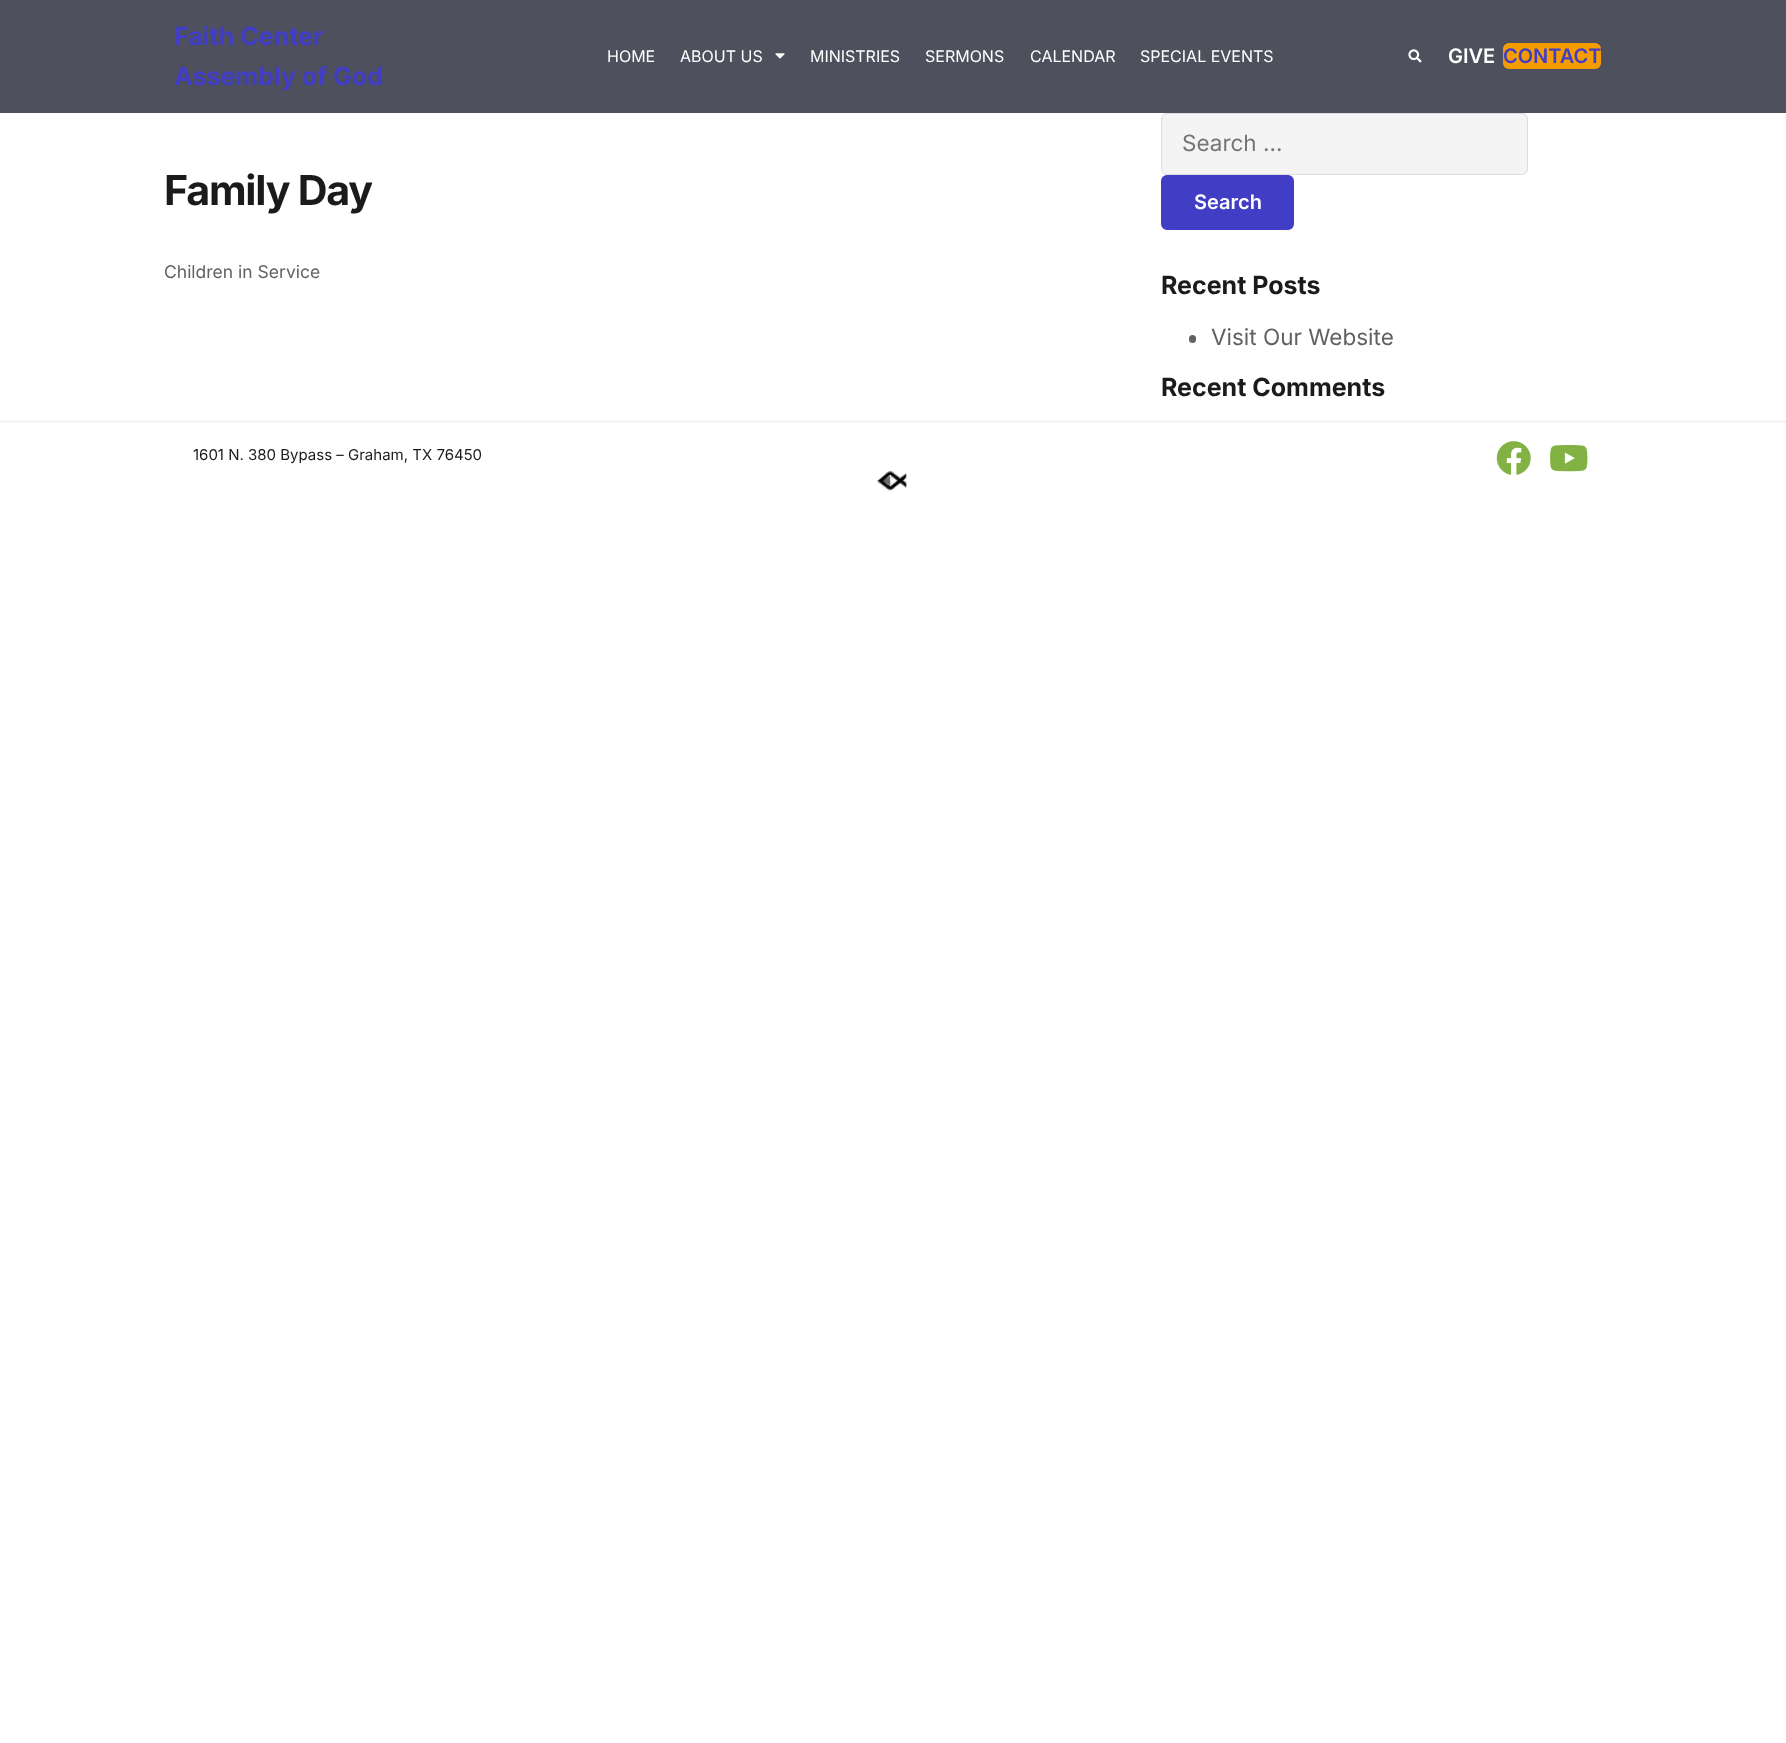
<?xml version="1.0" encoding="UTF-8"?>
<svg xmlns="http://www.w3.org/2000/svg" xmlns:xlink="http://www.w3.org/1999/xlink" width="1786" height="1743">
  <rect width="100%" height="100%" fill="#ffffff" />
  <rect width="1786" height="113" fill="#4e505d" />
  <image x="775" y="53" width="10" height="6" xlink:href="image1.png" />
  <image x="1408" y="49" width="14" height="14" xlink:href="image2.png" />
  <rect x="1503" y="43" width="98" height="26" rx="6" fill="#f59c03" />
  <rect x="1161.5" y="113.5" width="366" height="61" rx="5.5" fill="#f4f4f4" stroke="#dcdcdc" />
  <path d="M 1161 180 v 31 c 0 25 -1 20 26 20 h 81 c 27 0 26 5 26 -20 v -31 v 30 c 0 24 1 20 -26 20 h -80 c -28 0 -27 4 -27 -20 z" fill="#fcfcfc" />
  <rect x="1162.5" y="176.5" width="130" height="52" rx="4.5" fill="#413ec5" stroke="#413ec5" stroke-width="3" />
  <rect x="1189" y="335" width="7" height="8" rx="3.5" fill="#626262" />
  <rect y="420" width="1786" height="3" fill="#f4f4f4" />
  <image x="1496" y="441" width="35" height="34" xlink:href="image3.png" />
  <image x="1550" y="445" width="38" height="27" xlink:href="image4.png" />
  <image x="877" y="471" width="31" height="20" xlink:href="image5.png" />
  <text x="174" y="45" style="font-family: Inter; font-size: 25px; font-weight: bold; fill: #413ec5">Faith Center</text>
  <text x="174" y="85" style="font-family: Inter; font-size: 25px; font-weight: bold; fill: #413ec5">Assembly of God</text>
  <text x="607" y="62" style="font-family: Inter; font-size: 16px; fill: #ffffff">HOME</text>
  <text x="680" y="62" style="font-family: Inter; font-size: 16px; fill: #ffffff">ABOUT US</text>
  <text x="810" y="62" style="font-family: Inter; font-size: 16px; fill: #ffffff">MINISTRIES</text>
  <text x="925" y="62" style="font-family: Inter; font-size: 16px; fill: #ffffff">SERMONS</text>
  <text x="1030" y="62" style="font-family: Inter; font-size: 16px; fill: #ffffff">CALENDAR</text>
  <text x="1140" y="62" style="font-family: Inter; font-size: 16px; fill: #ffffff">SPECIAL EVENTS</text>
  <text x="1448" y="63" style="font-family: Inter; font-size: 20px; font-weight: 600; fill: #ffffff">GIVE</text>
  <text x="1503" y="63" style="font-family: Inter; font-size: 20px; font-weight: 600; fill: #413ec5">CONTACT</text>
  <text x="164" y="205" style="font-family: Inter; font-size: 41.25px; font-weight: bold; letter-spacing: -1.25px; fill: #1b1b1d">Family Day</text>
  <text x="164" y="278" style="font-family: Inter; font-size: 17.5px; fill: #616161">Children in Service</text>
  <text x="1182" y="151" style="font-family: Inter; font-size: 22.5px; fill: #757575">Search …</text>
  <text x="1194" y="209" style="font-family: Inter; font-size: 20px; font-weight: 600; fill: #ffffff">Search</text>
  <text x="1161" y="294" style="font-family: Inter; font-size: 25px; font-weight: bold; fill: #1b1b1d">Recent Posts</text>
  <text x="1211" y="345" style="font-family: Inter; font-size: 22.5px; fill: #616161">Visit Our Website</text>
  <text x="1161" y="396" style="font-family: Inter; font-size: 25px; font-weight: bold; fill: #1b1b1d">Recent Comments</text>
  <text x="193" y="460" style="font-family: Inter; font-size: 15px; fill: #1b1b1d">1601 N. 380 Bypass – Graham, TX 76450</text>
</svg>
